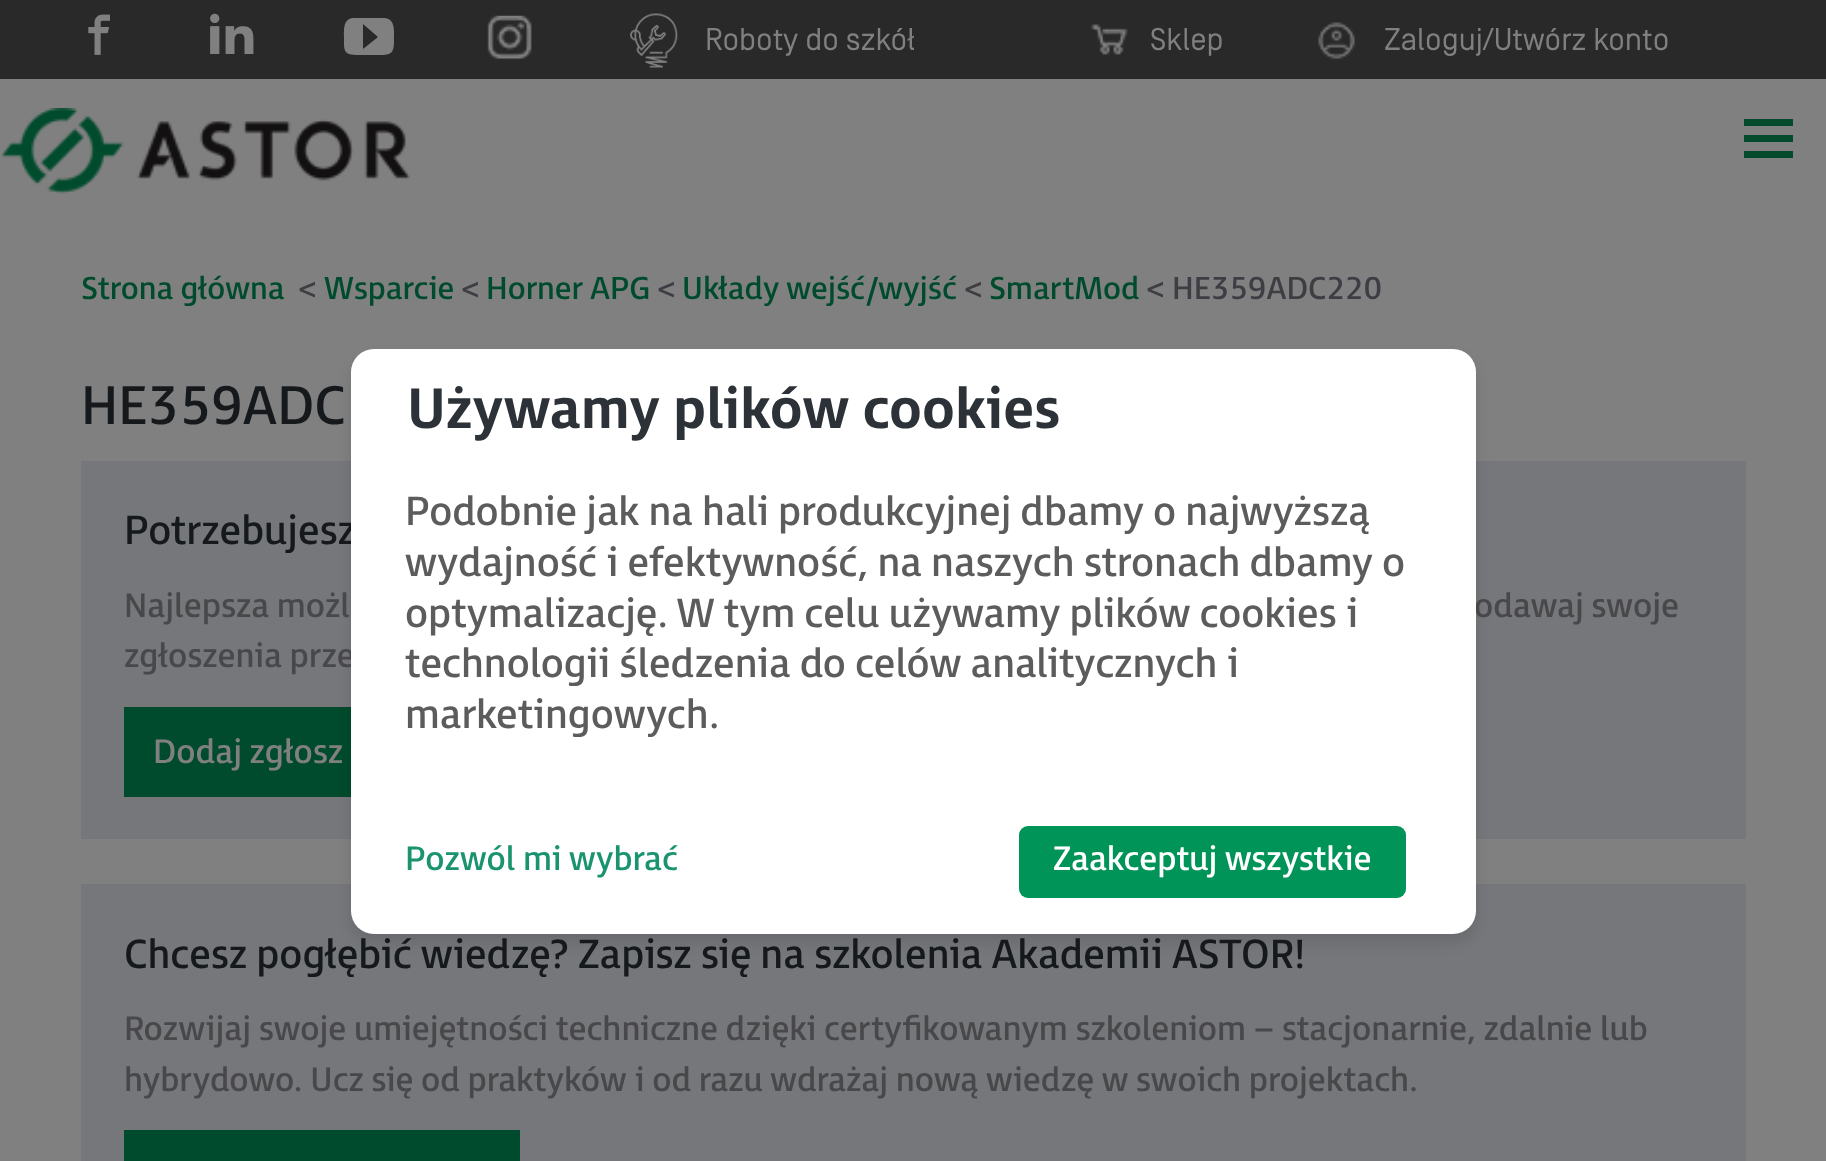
<?xml version="1.0" encoding="UTF-8"?>
<svg xmlns="http://www.w3.org/2000/svg" xmlns:xlink="http://www.w3.org/1999/xlink" width="1826" height="1161">
  <rect width="100%" height="100%" fill="#808080" />
  <rect width="1826" height="79" fill="#292929" />
  <image x="88" y="14" width="22" height="41" xlink:href="image1.png" />
  <image x="210" y="13" width="44" height="41" xlink:href="image2.png" />
  <path d="M 384 18 h -31 c -10 1 -9 12 -9 19 c 0 14 -1 18 15 18 h 20 c 13 0 15 -2 15 -15 c 0 -7 2 -22 -10 -22 z m -21 31 v -25 l 15 13 z" fill="#808080" />
  <image x="487" y="15" width="45" height="45" xlink:href="image3.png" />
  <image x="630" y="13" width="48" height="55" xlink:href="image4.png" />
  <image x="1090" y="24" width="38" height="31" xlink:href="image5.png" />
  <image x="1318" y="22" width="38" height="38" xlink:href="image6.png" />
  <image x="2" y="108" width="408" height="86" xlink:href="image7.png" />
  <rect x="1744" y="119" width="49" height="7" fill="#004b2d" />
  <rect x="1744" y="135" width="49" height="7" fill="#004b2d" />
  <rect x="1744" y="151" width="49" height="7" fill="#004b2d" />
  <rect x="81" y="461" width="1665" height="378" fill="#75777b" />
  <rect x="124" y="707" width="227" height="90" fill="#004b2d" />
  <rect x="81" y="884" width="1665" height="277" fill="#75777b" />
  <rect x="124" y="1130" width="396" height="31" fill="#004b2d" />
  <rect x="351" y="358" width="1125" height="585" rx="23" fill="#000000" fill-opacity="0.1" filter="blur(7px)" />
  <text x="705" y="50" style="font-family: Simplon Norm; font-size: 31.5px; fill: #808080">Roboty do szkół</text>
  <text x="1150" y="50" style="font-family: Simplon Norm; font-size: 31.5px; fill: #808080">Sklep</text>
  <text x="1384" y="50" style="font-family: Simplon Norm; font-size: 31.5px; fill: #808080">Zaloguj/Utwórz konto</text>
  <text x="81" y="299" style="font-family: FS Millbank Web; font-size: 31.5px; fill: #004b2d">Strona główna</text>
  <text x="298" y="299" style="font-family: FS Millbank Web; font-size: 31.5px; fill: #3d3d43">&lt;</text>
  <text x="324" y="299" style="font-family: FS Millbank Web; font-size: 31.5px; fill: #004b2d">Wsparcie</text>
  <text x="461" y="299" style="font-family: FS Millbank Web; font-size: 31.5px; fill: #3d3d43">&lt;</text>
  <text x="486" y="299" style="font-family: FS Millbank Web; font-size: 31.5px; fill: #004b2d">Horner APG</text>
  <text x="657" y="299" style="font-family: FS Millbank Web; font-size: 31.5px; fill: #3d3d43">&lt;</text>
  <text x="682" y="299" style="font-family: FS Millbank Web; font-size: 31.5px; fill: #004b2d">Układy wejść/wyjść</text>
  <text x="964" y="299" style="font-family: FS Millbank Web; font-size: 31.5px; fill: #3d3d43">&lt;</text>
  <text x="989" y="299" style="font-family: FS Millbank Web; font-size: 31.5px; fill: #004b2d">SmartMod</text>
  <text x="1146" y="299" style="font-family: FS Millbank Web; font-size: 31.5px; fill: #3d3d43">&lt;</text>
  <text x="1172" y="299" style="font-family: FS Millbank Web; font-size: 31.5px; fill: #3d3d43">HE359ADC220</text>
  <text x="81" y="424" style="font-family: FS Millbank Web; font-size: 54px; fill: #16191c">HE359ADC</text>
  <text x="124" y="544" style="font-family: FS Millbank Web; font-size: 40.5px; fill: #16191c">Potrzebujesz</text>
  <text x="124" y="617" style="font-family: FS Millbank Web; font-size: 33.75px; fill: #48484a">Najlepsza możl</text>
  <text x="1474" y="617" style="font-family: FS Millbank Web; font-size: 33.75px; fill: #48484a">odawaj swoje</text>
  <text x="124" y="667" style="font-family: FS Millbank Web; font-size: 33.75px; fill: #48484a">zgłoszenia prze</text>
  <text x="153" y="763" style="font-family: FS Millbank Web; font-size: 33.75px; fill: #808080">Dodaj zgłosz</text>
  <text x="124" y="968" style="font-family: FS Millbank Web; font-size: 40.5px; fill: #16191c">Chcesz pogłębić wiedzę? Zapisz się na szkolenia Akademii ASTOR!</text>
  <text x="124" y="1040" style="font-family: FS Millbank Web; font-size: 33.75px; fill: #48484a">Rozwijaj swoje umiejętności techniczne dzięki certyfikowanym szkoleniom – stacjonarnie, zdalnie lub</text>
  <text x="124" y="1091" style="font-family: FS Millbank Web; font-size: 33.75px; fill: #48484a">hybrydowo. Ucz się od praktyków i od razu wdrażaj nową wiedzę w swoich projektach.</text>
  <rect x="351" y="349" width="1125" height="585" rx="23" fill="#ffffff" />
  <text x="407" y="428" style="font-family: FS Millbank Web; font-size: 56.75px; font-weight: bold; fill: #2c3237">Używamy plików cookies</text>
  <text x="405" y="525" style="font-family: FS Millbank Web; font-size: 40.5px; fill: #5c5c5c">Podobnie jak na hali produkcyjnej dbamy o najwyższą</text>
  <text x="405" y="576" style="font-family: FS Millbank Web; font-size: 40.5px; fill: #5c5c5c">wydajność i efektywność, na naszych stronach dbamy o</text>
  <text x="405" y="627" style="font-family: FS Millbank Web; font-size: 40.5px; fill: #5c5c5c">optymalizację. W tym celu używamy plików cookies i</text>
  <text x="405" y="677" style="font-family: FS Millbank Web; font-size: 40.5px; fill: #5c5c5c">technologii śledzenia do celów analitycznych i</text>
  <text x="405" y="728" style="font-family: FS Millbank Web; font-size: 40.5px; fill: #5c5c5c">marketingowych.</text>
  <text x="405" y="870" style="font-family: FS Millbank Web; font-size: 33.75px; fill: #1a936f">Pozwól mi wybrać</text>
  <rect x="1019" y="826" width="387" height="72" rx="9" fill="#009459" />
  <text x="1053" y="870" style="font-family: FS Millbank Web; font-size: 33.75px; fill: #ffffff">Zaakceptuj wszystkie</text>
</svg>
